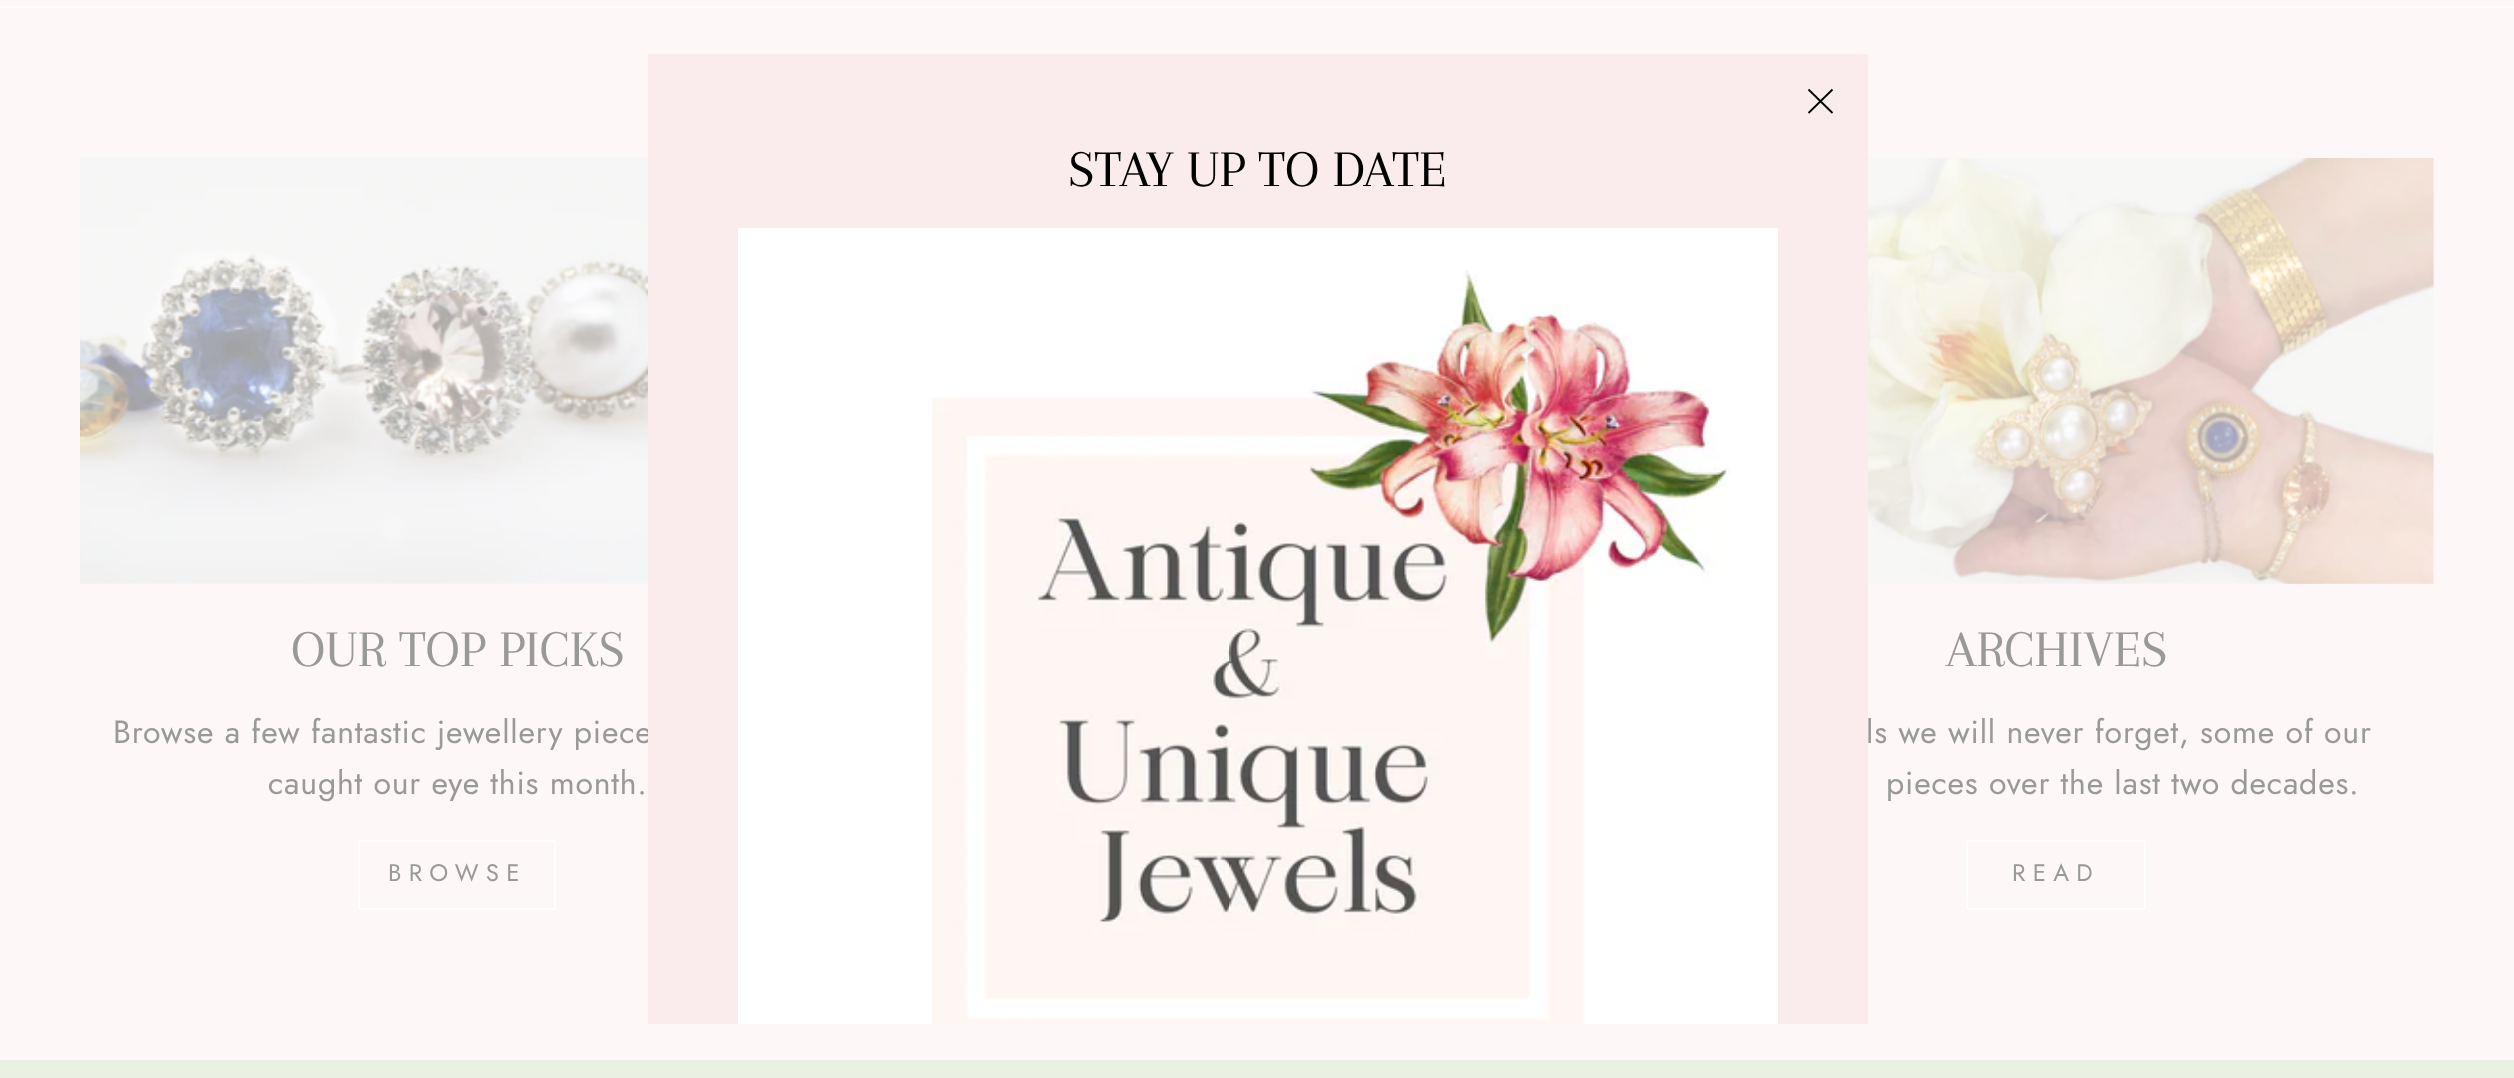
<?xml version="1.0" encoding="UTF-8"?>
<svg xmlns="http://www.w3.org/2000/svg" xmlns:xlink="http://www.w3.org/1999/xlink" width="2514" height="1078">
  <rect width="100%" height="100%" fill="#fdf7f7" />
  <rect y="6" width="2514" height="2" fill="#fffffc" />
  <image x="80" y="158" width="568" height="426" xlink:href="image2.png" />
  <rect x="359" y="841" width="196" height="68" fill="none" stroke="#fffffc" stroke-width="2" />
  <rect x="1868" y="158" width="566" height="426" fill="#ffffff" />
  <image x="1868" y="158" width="566" height="426" xlink:href="image3.png" />
  <rect x="1967" y="841" width="178" height="68" fill="none" stroke="#fffffc" stroke-width="2" />
  <rect y="1060" width="2514" height="18" fill="#eaf1e3" />
  <text x="291" y="666" style="font-family: Arapey; font-size: 53.25px; fill: #999999">OUR TOP PICKS</text>
  <text x="113" y="743" style="font-family: Jost; font-size: 32px; letter-spacing: 0.8px; fill: #999999">Browse a few fantastic jewellery piece</text>
  <rect x="648" y="54" width="1220" height="970" fill="#faecec" />
  <path d="M 1808.5 89.5 l 24 23.5 m 0 -23.5 l -24 23.5" fill="none" stroke="#000000" stroke-width="1.8" />
  <rect x="738" y="228" width="1040" height="796" fill="#ffffff" />
  <image x="931" y="270" width="800" height="754" xlink:href="image1.png" />
  <text x="1068" y="186" style="font-family: Arapey; font-size: 53.25px; fill: #000000">STAY UP TO DATE</text>
  <text x="268" y="794" style="font-family: Jost; font-size: 32px; letter-spacing: 0.8px; fill: #999999">caught our eye this month.</text>
  <text x="388" y="881" style="font-family: Jost; font-size: 24px; letter-spacing: 7.25px; fill: #999999">BROWSE</text>
  <text x="1946" y="666" style="font-family: Arapey; font-size: 53.25px; fill: #999999">ARCHIVES</text>
  <text x="1866" y="743" style="font-family: Jost; font-size: 32px; letter-spacing: 0.8px; fill: #999999">ls we will never forget, some of our</text>
  <text x="1886" y="794" style="font-family: Jost; font-size: 32px; letter-spacing: 0.8px; fill: #999999">pieces over the last two decades.</text>
  <text x="2012" y="881" style="font-family: Jost; font-size: 24px; letter-spacing: 7.25px; fill: #999999">READ</text>
</svg>
